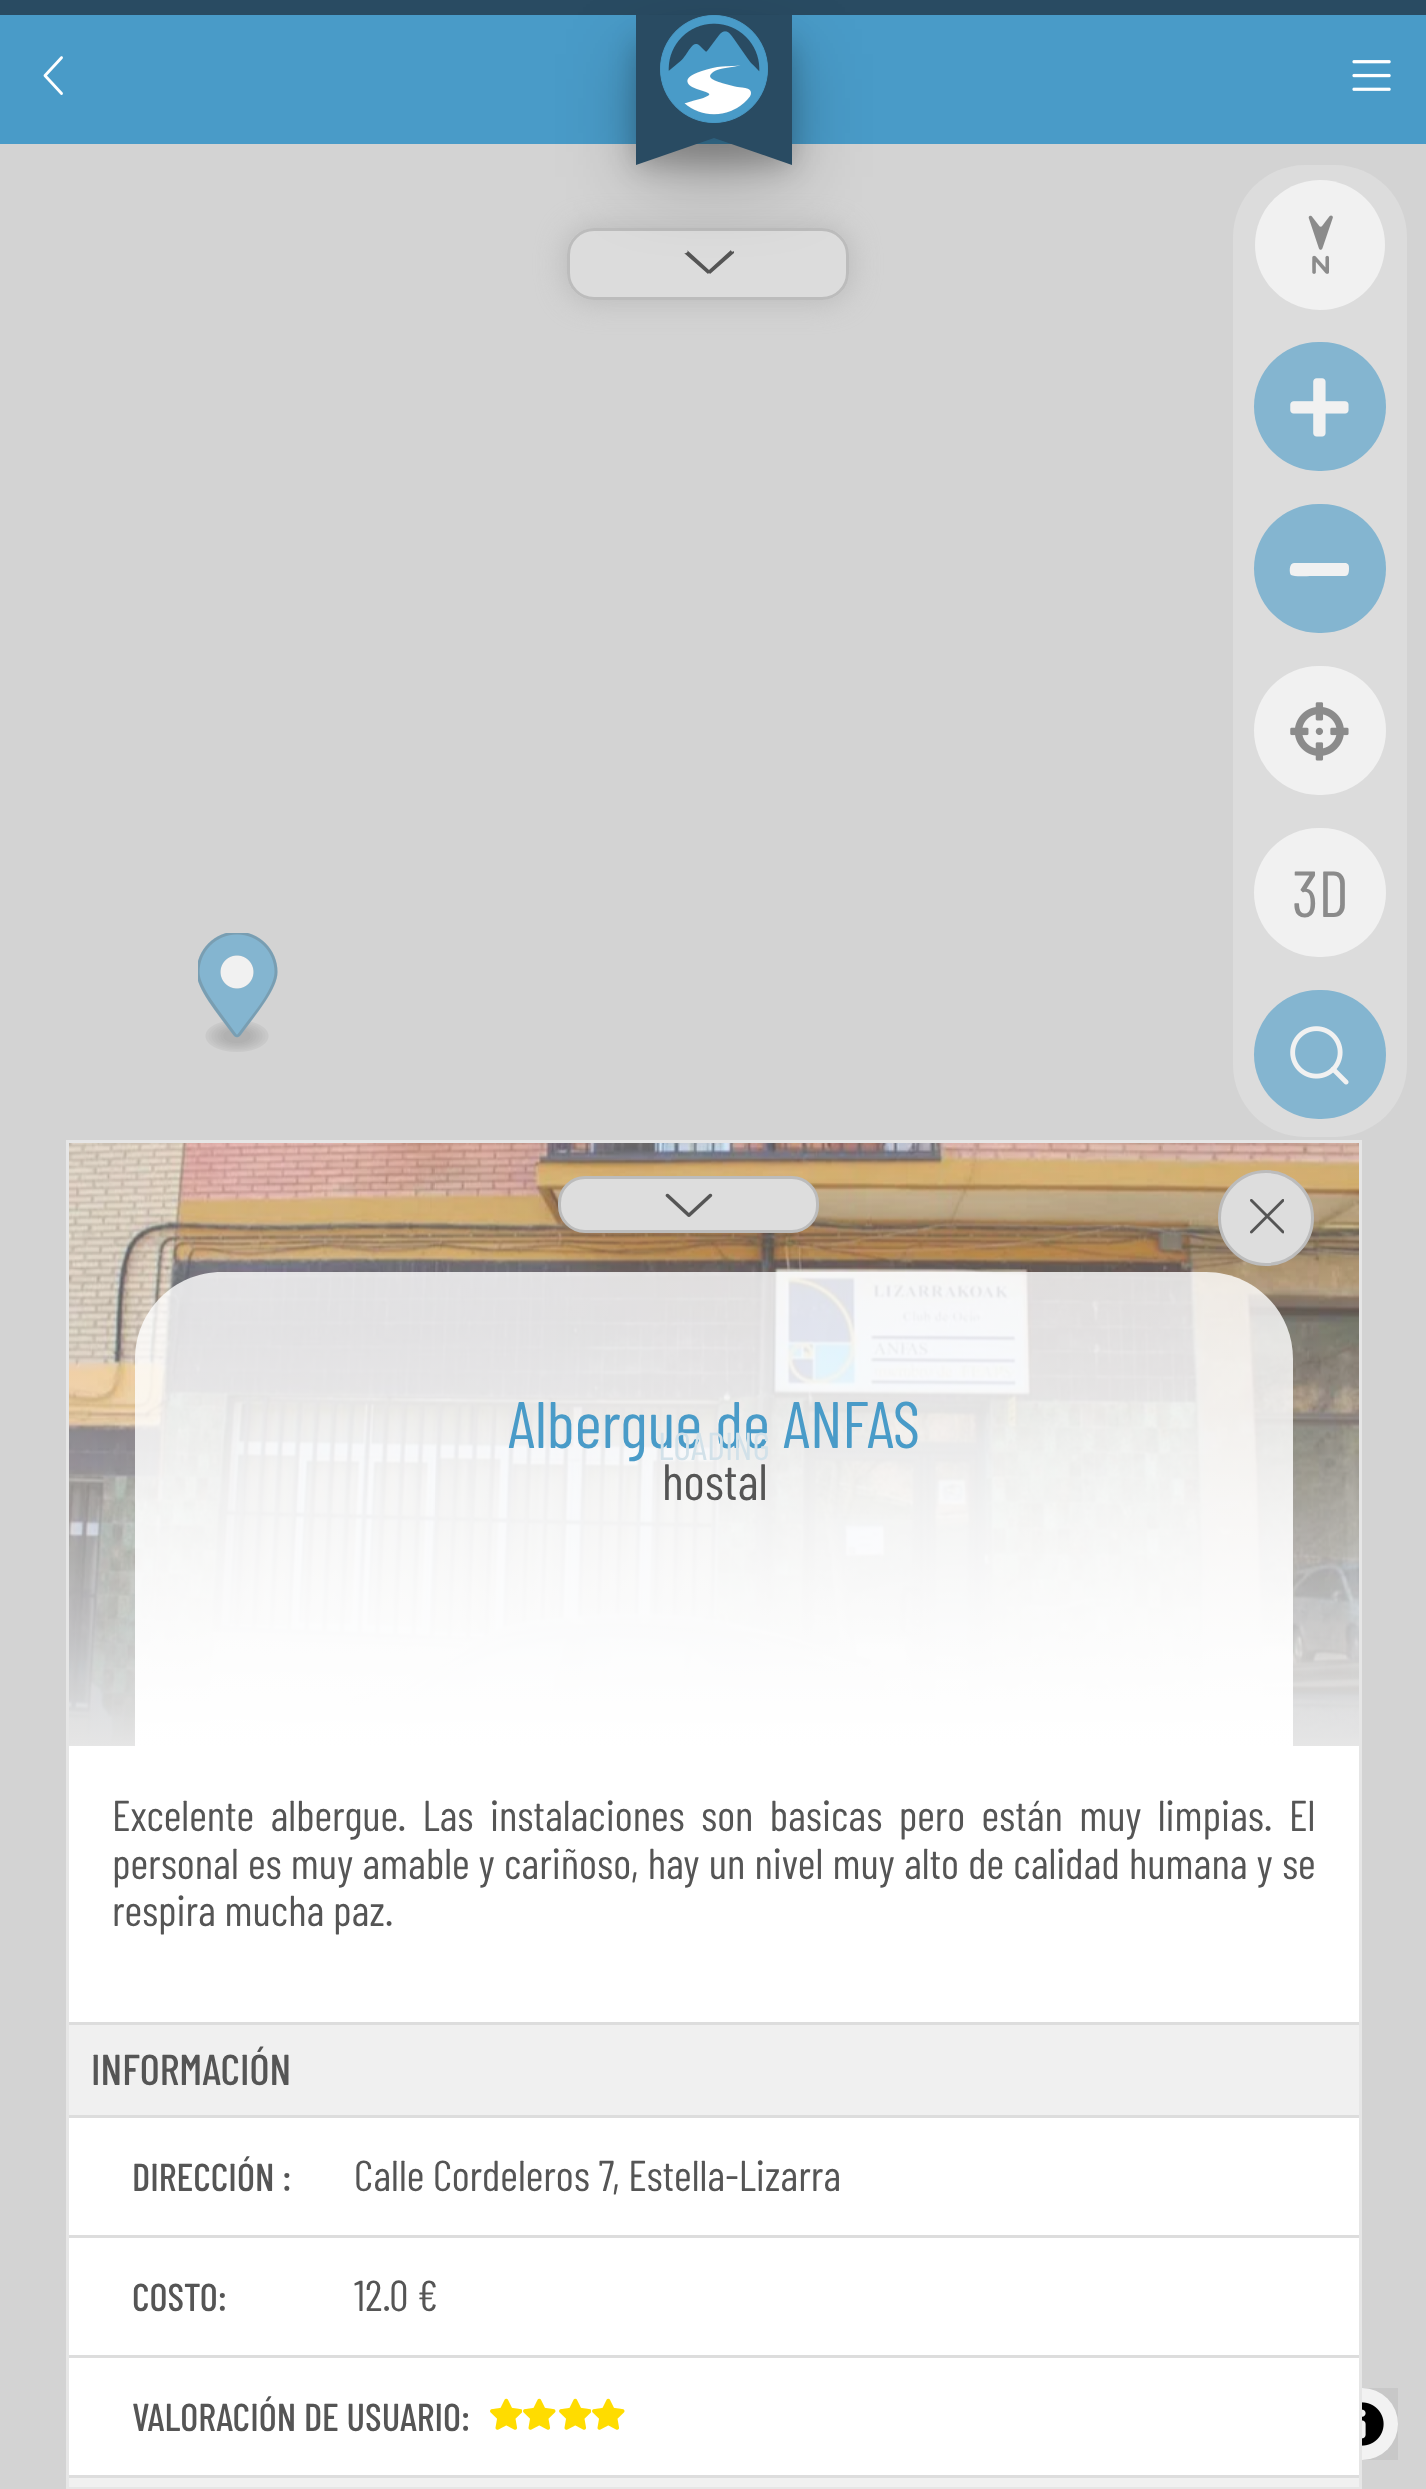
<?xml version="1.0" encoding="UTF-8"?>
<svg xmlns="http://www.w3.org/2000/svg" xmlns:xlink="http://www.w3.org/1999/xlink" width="1426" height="2489">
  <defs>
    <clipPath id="clip1"><path d="M 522 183 h 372 v 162 h -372 z m 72 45 h 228 c 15 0 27 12 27 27 v 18 c 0 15 -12 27 -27 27 h -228 c -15 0 -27 -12 -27 -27 v -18 c 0 -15 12 -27 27 -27 z" clip-rule="evenodd" /></clipPath>
    <linearGradient id="g1" gradientUnits="userSpaceOnUse" x1="714" y1="1749" x2="714" y2="1143"><stop offset="0" stop-color="#e6e6e6" /><stop offset="0.7" stop-color="#e6e6e6" stop-opacity="0.3" /></linearGradient>
    <linearGradient id="g2" gradientUnits="userSpaceOnUse" x1="714" y1="1749" x2="714" y2="1272"><stop offset="0" stop-color="#ffffff" /><stop offset="0.71" stop-color="#ffffff" stop-opacity="0.8" /></linearGradient>
  </defs>
  <rect width="100%" height="100%" fill="#d3d3d3" />
  <rect width="1426" height="15" fill="#294b62" />
  <rect y="15" width="1426" height="129" fill="#499bc8" />
  <image x="43" y="56" width="20" height="39" xlink:href="image1.png" />
  <rect x="636" y="42" width="156" height="123" fill="#000000" fill-opacity="0.22" filter="blur(13.5px)" />
  <g clip-path="url(#clip1)">
    <rect x="564" y="225" width="288" height="78" rx="30" fill="#bcbcbc" filter="blur(13.5px)" />
  </g>
  <rect x="568.5" y="229.5" width="279" height="69" rx="25.5" fill="#dddddd" fill-opacity="0.9" stroke="#bcbcbc" stroke-width="3" />
  <path d="M 734 251 v 2 l -24 21 c 0 -1 -2 -1 -2 0 l -24 -21 c 2 1 5 -1 3 -3 l 22 20 l 22 -20 c 0 2 2 2 3 1 z" fill="#555555" />
  <rect x="636" y="54" width="156" height="123" fill="#000000" fill-opacity="0.25" filter="blur(38px)" />
  <rect x="636" y="15" width="156" height="123" fill="#294b62" />
  <image x="660" y="15" width="108" height="108" xlink:href="image2.png" />
  <path d="M 792 138 v 27 l -78 -27 z" fill="#294b62" />
  <path d="M 636 165 v -27 h 78 z" fill="#294b62" />
  <image x="1352" y="60" width="39" height="31" xlink:href="image3.png" />
  <rect x="1233" y="165" width="174" height="972" rx="72" fill="#dcdcdc" />
  <path d="M 1320 310 c -36 0 -65 -29 -65 -65 c 0 -36 29 -65 65 -65 c 36 0 65 29 65 65 c 0 36 -29 65 -65 65 z" fill="#f1f1f1" />
  <image x="1308" y="215" width="25" height="59" xlink:href="image4.png" />
  <rect x="1254" y="342" width="132" height="129" rx="64.5" fill="#84b5d0" />
  <image x="1290" y="378" width="59" height="59" xlink:href="image5.png" />
  <rect x="1254" y="504" width="132" height="129" rx="64.5" fill="#84b5d0" />
  <path d="M 1294 563 c -5 0 -5 10 -3 12 c 3 2 16 1 21 1 h 33 c 4 0 4 -5 4 -8 c 0 -2 0 -4 -3 -5 z" fill="#f1f1f1" />
  <rect x="1254" y="666" width="132" height="129" rx="64.5" fill="#f1f1f1" />
  <image x="1290" y="702" width="59" height="59" xlink:href="image6.png" />
  <rect x="1254" y="828" width="132" height="129" rx="64.5" fill="#f1f1f1" />
  <rect x="1254" y="990" width="132" height="129" rx="64.5" fill="#84b5d0" />
  <image x="1290" y="1026" width="59" height="59" xlink:href="image7.png" />
  <image x="198" y="933" width="80" height="119" xlink:href="image8.png" />
  <rect x="633" y="2388" width="765" height="72" rx="36" fill="#ffffff" />
  <rect x="1362" y="2388" width="36" height="72" fill="#000000" fill-opacity="0.05" />
  <image x="1362" y="2402" width="22" height="44" xlink:href="image9.png" />
  <rect x="69" y="2118" width="1290" height="357" fill="#ffffff" />
  <image x="69" y="1143" width="1290" height="602" xlink:href="image12.png" />
  <rect x="67.5" y="1141.5" width="1293" height="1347" fill="none" stroke="#e6e6e6" stroke-width="3" />
  <rect x="69" y="1143" width="1290" height="603" fill="url(#g1)" />
  <rect x="559.5" y="1177.5" width="258" height="54" rx="25.5" fill="#dddddd" stroke="#bcbcbc" stroke-width="3" />
  <image x="665" y="1193" width="48" height="24" xlink:href="image10.png" />
  <circle cx="1266" cy="1218" r="46.5" fill="#dddddd" stroke="#bcbcbc" stroke-width="3" />
  <image x="1250" y="1199" width="34" height="35" xlink:href="image11.png" />
  <rect x="69" y="1746" width="1290" height="276" fill="#ffffff" />
  <path d="M 222 1272 h 984 c 48 0 87 39 87 87 v 390 h -1158 v -390 c 0 -48 39 -87 87 -87 z" fill="url(#g2)" />
  <rect x="69" y="2025" width="1290" height="90" fill="#f0f0f0" />
  <rect x="69" y="2022" width="1290" height="3" fill="#dddddd" />
  <rect x="69" y="2115" width="1290" height="3" fill="#dddddd" />
  <rect x="69" y="2235" width="1290" height="3" fill="#dddddd" />
  <rect x="69" y="2355" width="1290" height="3" fill="#dddddd" />
  <image x="490" y="2398" width="32" height="32" xlink:href="image13.png" />
  <image x="523" y="2398" width="33" height="32" xlink:href="image14.png" />
  <image x="559" y="2398" width="32" height="32" xlink:href="image13.png" />
  <image x="592" y="2398" width="33" height="32" xlink:href="image14.png" />
  <rect x="69" y="2478" width="1290" height="9" fill="#f0f0f0" />
  <rect x="69" y="2475" width="1290" height="3" fill="#dddddd" />
  <text x="1292" y="917" style="font-family: Barlow Condensed; font-size: 65px; fill: #8b8b8b">3D</text>
  <text x="508" y="1448" style="font-family: Barlow Condensed; font-size: 65.75px; fill: #499bc8">Albergue de ANFAS</text>
  <text x="662" y="1500" style="font-family: Barlow Condensed; font-size: 51px; fill: #555555">hostal</text>
  <text x="112" y="1831" word-spacing="7.75" style="font-family: Barlow Condensed; font-size: 43.2px; fill: #555555">Excelente albergue. Las instalaciones son basicas pero están muy limpias.</text>
  <text x="1289" y="1831" style="font-family: Barlow Condensed; font-size: 43.2px; fill: #555555">El</text>
  <text x="112" y="1879" word-spacing="0.6" style="font-family: Barlow Condensed; font-size: 43.2px; fill: #555555">personal es muy amable y cariñoso, hay un nivel muy alto de calidad humana y se</text>
  <text x="112" y="1926" style="font-family: Barlow Condensed; font-size: 43.2px; fill: #555555">respira mucha paz.</text>
  <text x="91" y="2085" style="font-family: Barlow Condensed; font-size: 43.2px; font-weight: 500; fill: #555555">INFORMACIÓN</text>
  <text x="132" y="2191" style="font-family: Barlow Condensed; font-size: 38.9px; font-weight: 500; fill: #555555">DIRECCIÓN :</text>
  <text x="354" y="2191" style="font-family: Barlow Condensed; font-size: 43.2px; fill: #555555">Calle Cordeleros 7, Estella-Lizarra</text>
  <text x="132" y="2311" style="font-family: Barlow Condensed; font-size: 38.9px; font-weight: 500; fill: #555555">COSTO:</text>
  <text x="354" y="2311" style="font-family: Barlow Condensed; font-size: 43.2px; fill: #555555">12.0 €</text>
  <text x="132" y="2431" style="font-family: Barlow Condensed; font-size: 38.9px; font-weight: 500; fill: #555555">VALORACIÓN DE USUARIO:</text>
  <text x="658" y="1460" style="font-family: Barlow Condensed; font-size: 38.9px; fill: #d2e1e9">LOADING</text>
</svg>
